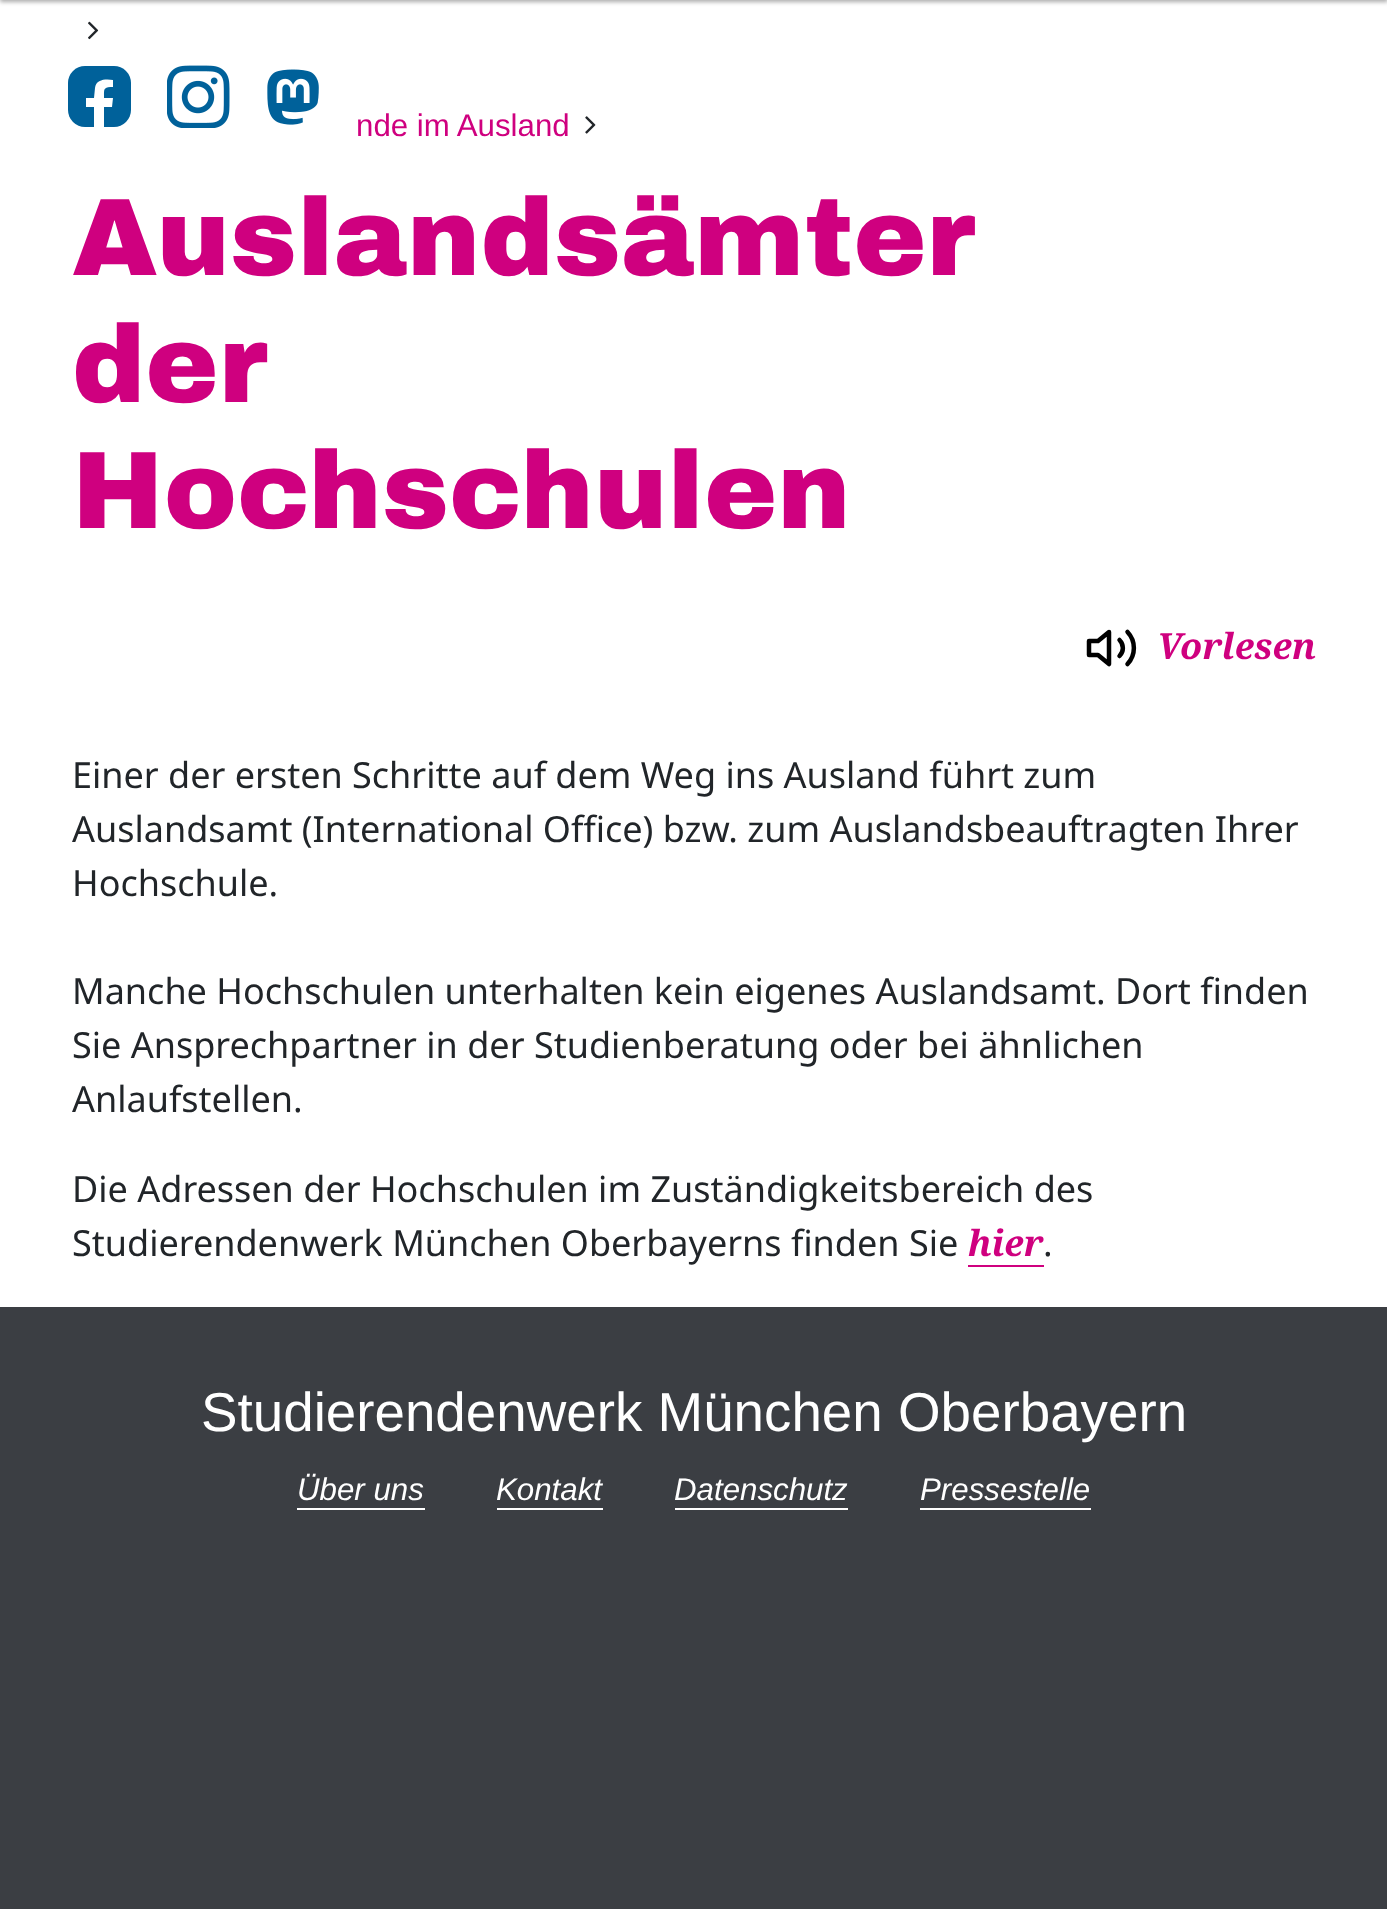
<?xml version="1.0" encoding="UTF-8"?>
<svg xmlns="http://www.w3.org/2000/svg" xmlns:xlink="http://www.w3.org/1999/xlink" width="1387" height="1909">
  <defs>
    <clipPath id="clip1"><rect x="68" y="65" width="63" height="63" /></clipPath>
  </defs>
  <rect width="100%" height="100%" fill="#ffffff" />
  <rect y="-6" width="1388" height="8" fill="#000000" fill-opacity="0.33" filter="blur(2px)" />
  <rect x="68" y="66" width="63" height="61" rx="17" fill="#00619a" />
  <g clip-path="url(#clip1)">
    <path d="M 112 107 l 1 -9 h -9 c 0 -9 -1 -11 9 -11 v -7 c -7 -1 -17 -1 -18 8 l -1 10 h -8 v 9 h 8 v 21 c 4 1 7 1 10 0 v -21 z" fill="#ffffff" />
  </g>
  <image x="167" y="65" width="63" height="63" xlink:href="image1.png" />
  <image x="267" y="69" width="52" height="56" xlink:href="image2.png" />
  <image x="88" y="21" width="11" height="19" xlink:href="image3.png" />
  <image x="585" y="116" width="11" height="18" xlink:href="image4.png" />
  <path d="M 1109 632 l -11 9 h -9 v 14 h 9 l 11 9 z m 18.5 0 c 8.5 9 8.5 23 0 32 m -8 -24 c 4.5 4.5 4.5 11.5 0 16" fill="none" stroke="#000000" stroke-width="4.5" stroke-linecap="round" stroke-linejoin="round" />
  <rect x="968" y="1265" width="76" height="2" fill="#cf007f" />
  <rect y="1307" width="1387" height="602" fill="#3b3e43" />
  <rect x="297" y="1508" width="128" height="2" fill="#ffffff" />
  <rect x="497" y="1508" width="106" height="2" fill="#ffffff" />
  <rect x="675" y="1508" width="173" height="2" fill="#ffffff" />
  <rect x="920" y="1508" width="171" height="2" fill="#ffffff" />
  <text x="356" y="136" style="font-family: Liberation Sans; font-size: 31.25px; fill: #cf007f">nde im Ausland</text>
  <text x="72" y="275" style="font-family: Archivo Black; font-size: 110px; font-weight: 900; fill: #cf007f">Auslandsämter</text>
  <text x="72" y="402" style="font-family: Archivo Black; font-size: 110px; font-weight: 900; fill: #cf007f">der</text>
  <text x="72" y="528" style="font-family: Archivo Black; font-size: 110px; font-weight: 900; fill: #cf007f">Hochschulen</text>
  <text x="1157" y="659" style="font-family: Droid Serif; font-size: 36px; font-weight: bold; font-style: italic; fill: #cf007f">Vorlesen</text>
  <text x="72" y="788" style="font-family: Noto Sans; font-size: 36px; fill: #212529">Einer der ersten Schritte auf dem Weg ins Ausland führt zum</text>
  <text x="72" y="842" style="font-family: Noto Sans; font-size: 36px; fill: #212529">Auslandsamt (International Office) bzw. zum Auslandsbeauftragten Ihrer</text>
  <text x="72" y="896" style="font-family: Noto Sans; font-size: 36px; fill: #212529">Hochschule.</text>
  <text x="72" y="1004" style="font-family: Noto Sans; font-size: 36px; fill: #212529">Manche Hochschulen unterhalten kein eigenes Auslandsamt. Dort finden</text>
  <text x="72" y="1058" style="font-family: Noto Sans; font-size: 36px; fill: #212529">Sie Ansprechpartner in der Studienberatung oder bei ähnlichen</text>
  <text x="72" y="1112" style="font-family: Noto Sans; font-size: 36px; fill: #212529">Anlaufstellen.</text>
  <text x="72" y="1202" style="font-family: Noto Sans; font-size: 36px; fill: #212529">Die Adressen der Hochschulen im Zuständigkeitsbereich des</text>
  <text x="72" y="1256" style="font-family: Noto Sans; font-size: 36px; fill: #212529">Studierendenwerk München Oberbayerns finden Sie</text>
  <text x="968" y="1256" style="font-family: Droid Serif; font-size: 36px; font-weight: bold; font-style: italic; fill: #cf007f">hier</text>
  <text x="1043" y="1256" style="font-family: Noto Sans; font-size: 36px; fill: #212529">.</text>
  <text x="201" y="1431" style="font-family: Liberation Sans; font-size: 54.75px; fill: #ffffff">Studierendenwerk München Oberbayern</text>
  <text x="297" y="1500" style="font-family: Liberation Sans; font-size: 31.25px; font-style: italic; fill: #ffffff">Über uns</text>
  <text x="496" y="1500" style="font-family: Liberation Sans; font-size: 31.25px; font-style: italic; fill: #ffffff">Kontakt</text>
  <text x="674" y="1500" style="font-family: Liberation Sans; font-size: 31.25px; font-style: italic; fill: #ffffff">Datenschutz</text>
  <text x="920" y="1500" style="font-family: Liberation Sans; font-size: 31.25px; font-style: italic; fill: #ffffff">Pressestelle</text>
</svg>
